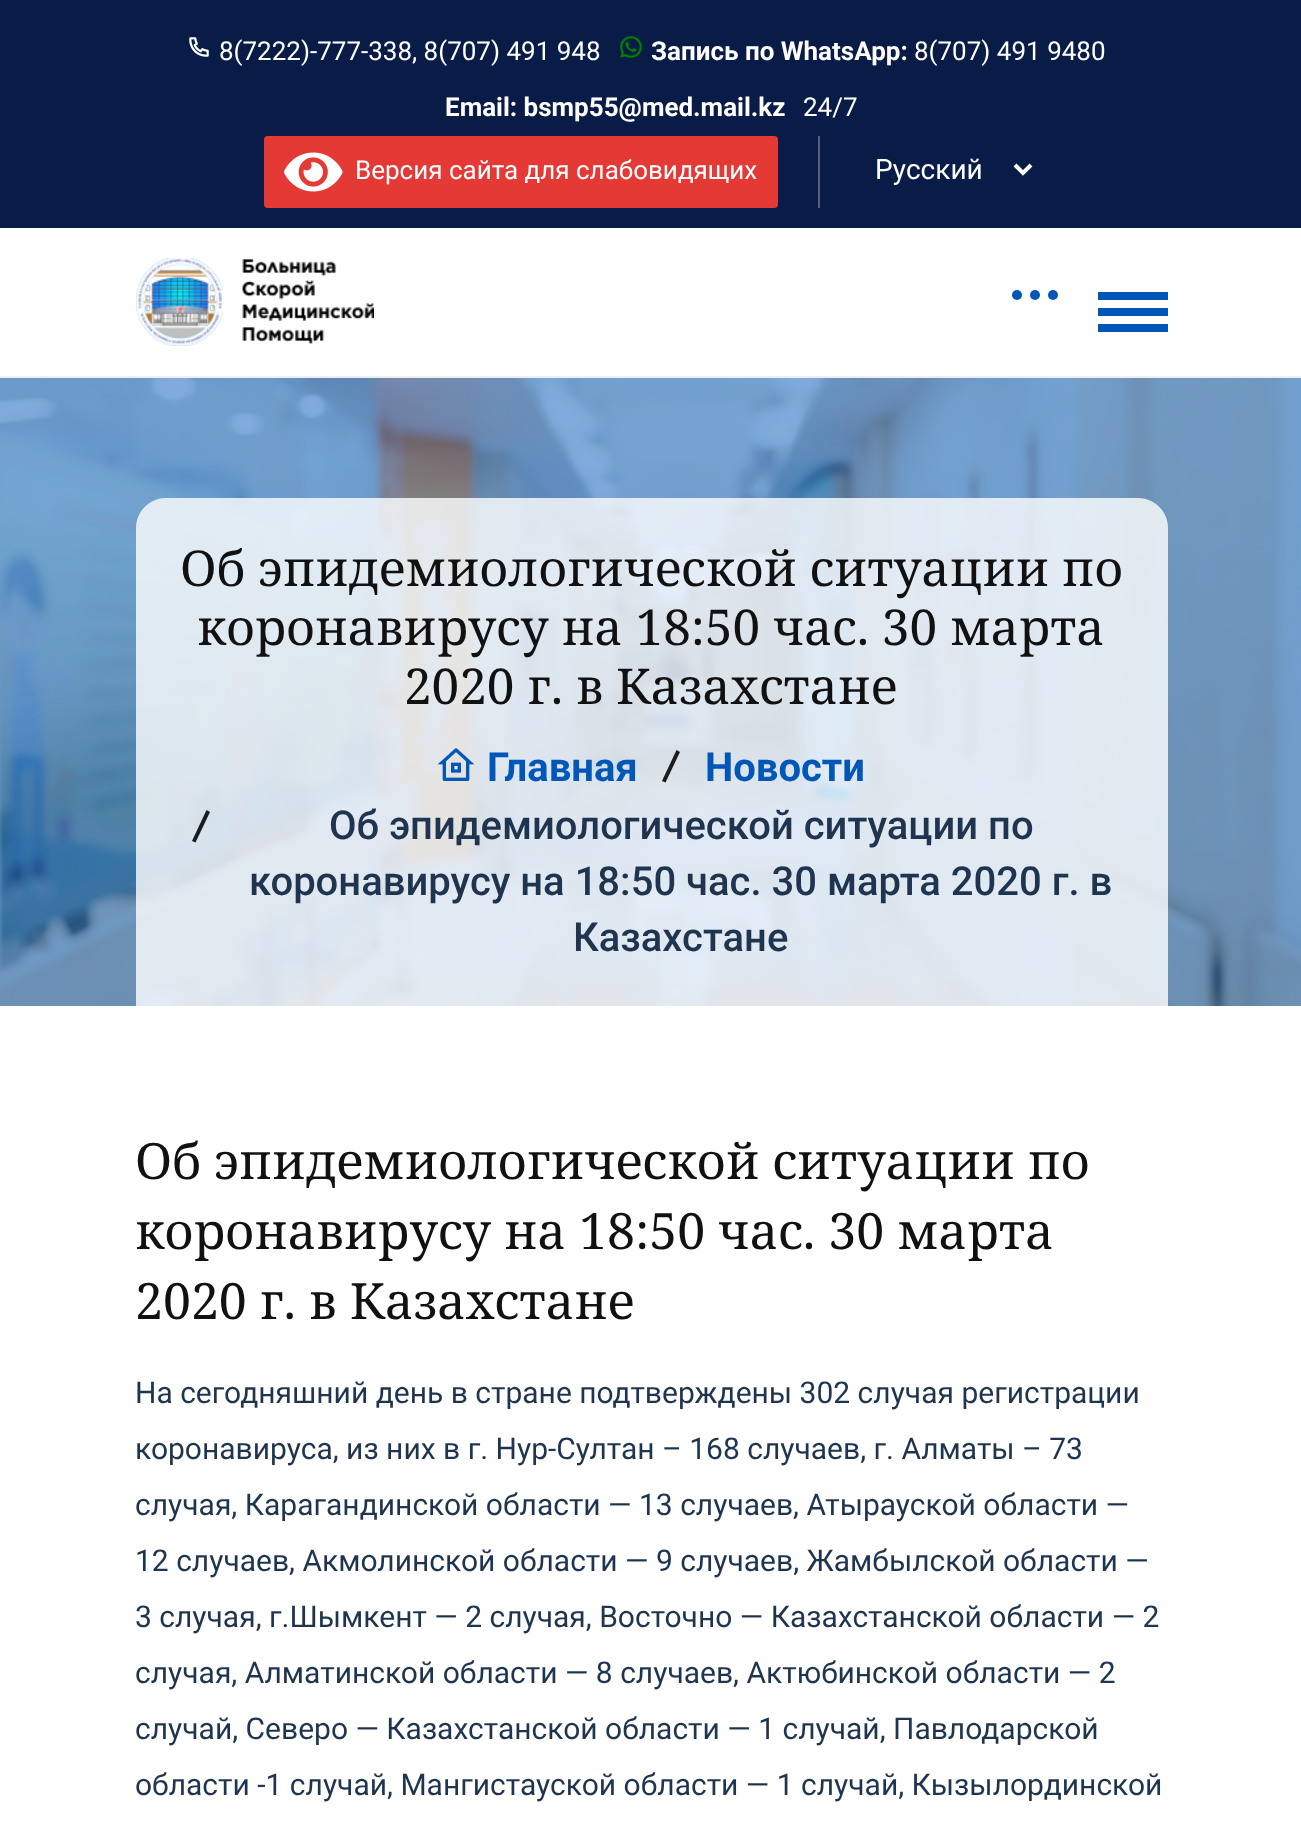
<?xml version="1.0" encoding="UTF-8"?>
<svg xmlns="http://www.w3.org/2000/svg" xmlns:xlink="http://www.w3.org/1999/xlink" width="1301" height="1841">
  <rect width="100%" height="100%" fill="#ffffff" />
  <rect width="1301" height="228" fill="#091c47" />
  <image x="189" y="37" width="20" height="20" xlink:href="image1.png" />
  <image x="620" y="36" width="22" height="22" xlink:href="image2.png" />
  <rect x="818" y="136" width="2" height="72" fill="#53607e" />
  <rect x="264" y="136" width="514" height="72" rx="4" fill="#e53935" />
  <image x="284" y="152" width="59" height="40" xlink:href="image3.png" />
  <path d="M 1015 165 l 8 8 l 8 -8" fill="none" stroke="#ffffff" stroke-width="4" />
  <rect y="376" width="1301" height="2" fill="#efefef" />
  <image x="136" y="258" width="238" height="88" xlink:href="image4.png" />
  <rect x="1098" y="292" width="70" height="8" fill="#0057b8" />
  <rect x="1098" y="308" width="70" height="8" fill="#0057b8" />
  <rect x="1098" y="324" width="70" height="8" fill="#0057b8" />
  <circle cx="1017" cy="295" r="5" fill="#0057b8" />
  <circle cx="1035" cy="295" r="5" fill="#0057b8" />
  <circle cx="1053" cy="295" r="5" fill="#0057b8" />
  <image x="0" y="378" width="1301" height="628" xlink:href="image5.png" />
  <path d="M 166 498 h 972 c 16.5 0 30 13.5 30 30 v 478 h -1032 v -478 c 0 -16.5 13.5 -30 30 -30 z" fill="#ffffff" fill-opacity="0.8" />
  <image x="437" y="748" width="38" height="33" xlink:href="image6.png" />
  <path d="M 676.5 750 l 3.5 2 l -14.5 30.5 l -3.5 -1.5 z" fill="#1c1c1c" />
  <path d="M 206.5 810 l 3.5 2 l -14.5 30.5 l -3.5 -1.5 z" fill="#1c1c1c" />
  <text x="219" y="60" style="font-family: Roboto; font-size: 26px; fill: #ffffff">8(7222)-777-338, 8(707) 491 948</text>
  <text x="651" y="60" style="font-family: Roboto; font-size: 26px; font-weight: bold; fill: #ffffff">Запись по WhatsApp:</text>
  <text x="914" y="60" style="font-family: Roboto; font-size: 26px; fill: #ffffff">8(707) 491 9480</text>
  <text x="445" y="116" style="font-family: Roboto; font-size: 26px; font-weight: bold; fill: #ffffff">Email: bsmp55@med.mail.kz</text>
  <text x="803" y="116" style="font-family: Roboto; font-size: 26px; fill: #ffffff">24/7</text>
  <text x="355" y="179" style="font-family: Roboto; font-size: 26px; fill: #ffffff">Версия сайта для слабовидящих</text>
  <text x="875" y="179" style="font-family: Roboto; font-size: 28px; fill: #ffffff">Русский</text>
  <text x="180" y="586" style="font-family: Noto Serif; font-size: 49.4px; fill: #111111">Об эпидемиологической ситуации по</text>
  <text x="197" y="645" style="font-family: Noto Serif; font-size: 49.4px; fill: #111111">коронавирусу на 18:50 час. 30 марта</text>
  <text x="404" y="704" style="font-family: Noto Serif; font-size: 49.4px; fill: #111111">2020 г. в Казахстане</text>
  <text x="487" y="781" style="font-family: Roboto; font-size: 40px; font-weight: bold; fill: #0057b8">Главная</text>
  <text x="705" y="781" style="font-family: Roboto; font-size: 40px; font-weight: bold; fill: #0057b8">Новости</text>
  <text x="329" y="839" style="font-family: Roboto; font-size: 40px; font-weight: 500; fill: #1f354f">Об эпидемиологической ситуации по</text>
  <text x="249" y="895" style="font-family: Roboto; font-size: 40px; font-weight: 500; fill: #1f354f">коронавирусу на 18:50 час. 30 марта 2020 г. в</text>
  <text x="573" y="951" style="font-family: Roboto; font-size: 40px; font-weight: 500; fill: #1f354f">Казахстане</text>
  <text x="135" y="1179" style="font-family: Noto Serif; font-size: 50px; fill: #111111">Об эпидемиологической ситуации по</text>
  <text x="135" y="1249" style="font-family: Noto Serif; font-size: 50px; fill: #111111">коронавирусу на 18:50 час. 30 марта</text>
  <text x="135" y="1319" style="font-family: Noto Serif; font-size: 50px; fill: #111111">2020 г. в Казахстане</text>
  <text x="135" y="1403" style="font-family: Roboto; font-size: 30px; fill: #1f354f">На сегодняшний день в стране подтверждены 302 случая регистрации</text>
  <text x="135" y="1459" style="font-family: Roboto; font-size: 30px; fill: #1f354f">коронавируса, из них в г. Нур-Султан – 168 случаев, г. Алматы – 73</text>
  <text x="135" y="1515" style="font-family: Roboto; font-size: 30px; fill: #1f354f">случая, Карагандинской области — 13 случаев, Атырауской области —</text>
  <text x="135" y="1571" style="font-family: Roboto; font-size: 30px; fill: #1f354f">12 случаев, Акмолинской области — 9 случаев, Жамбылской области —</text>
  <text x="135" y="1627" style="font-family: Roboto; font-size: 30px; fill: #1f354f">3 случая, г.Шымкент — 2 случая, Восточно — Казахстанской области — 2</text>
  <text x="135" y="1683" style="font-family: Roboto; font-size: 30px; fill: #1f354f">случая, Алматинской области — 8 случаев, Актюбинской области — 2</text>
  <text x="135" y="1739" style="font-family: Roboto; font-size: 30px; fill: #1f354f">случай, Северо — Казахстанской области — 1 случай, Павлодарской</text>
  <text x="135" y="1795" style="font-family: Roboto; font-size: 30px; fill: #1f354f">области -1 случай, Мангистауской области — 1 случай, Кызылординской</text>
</svg>
